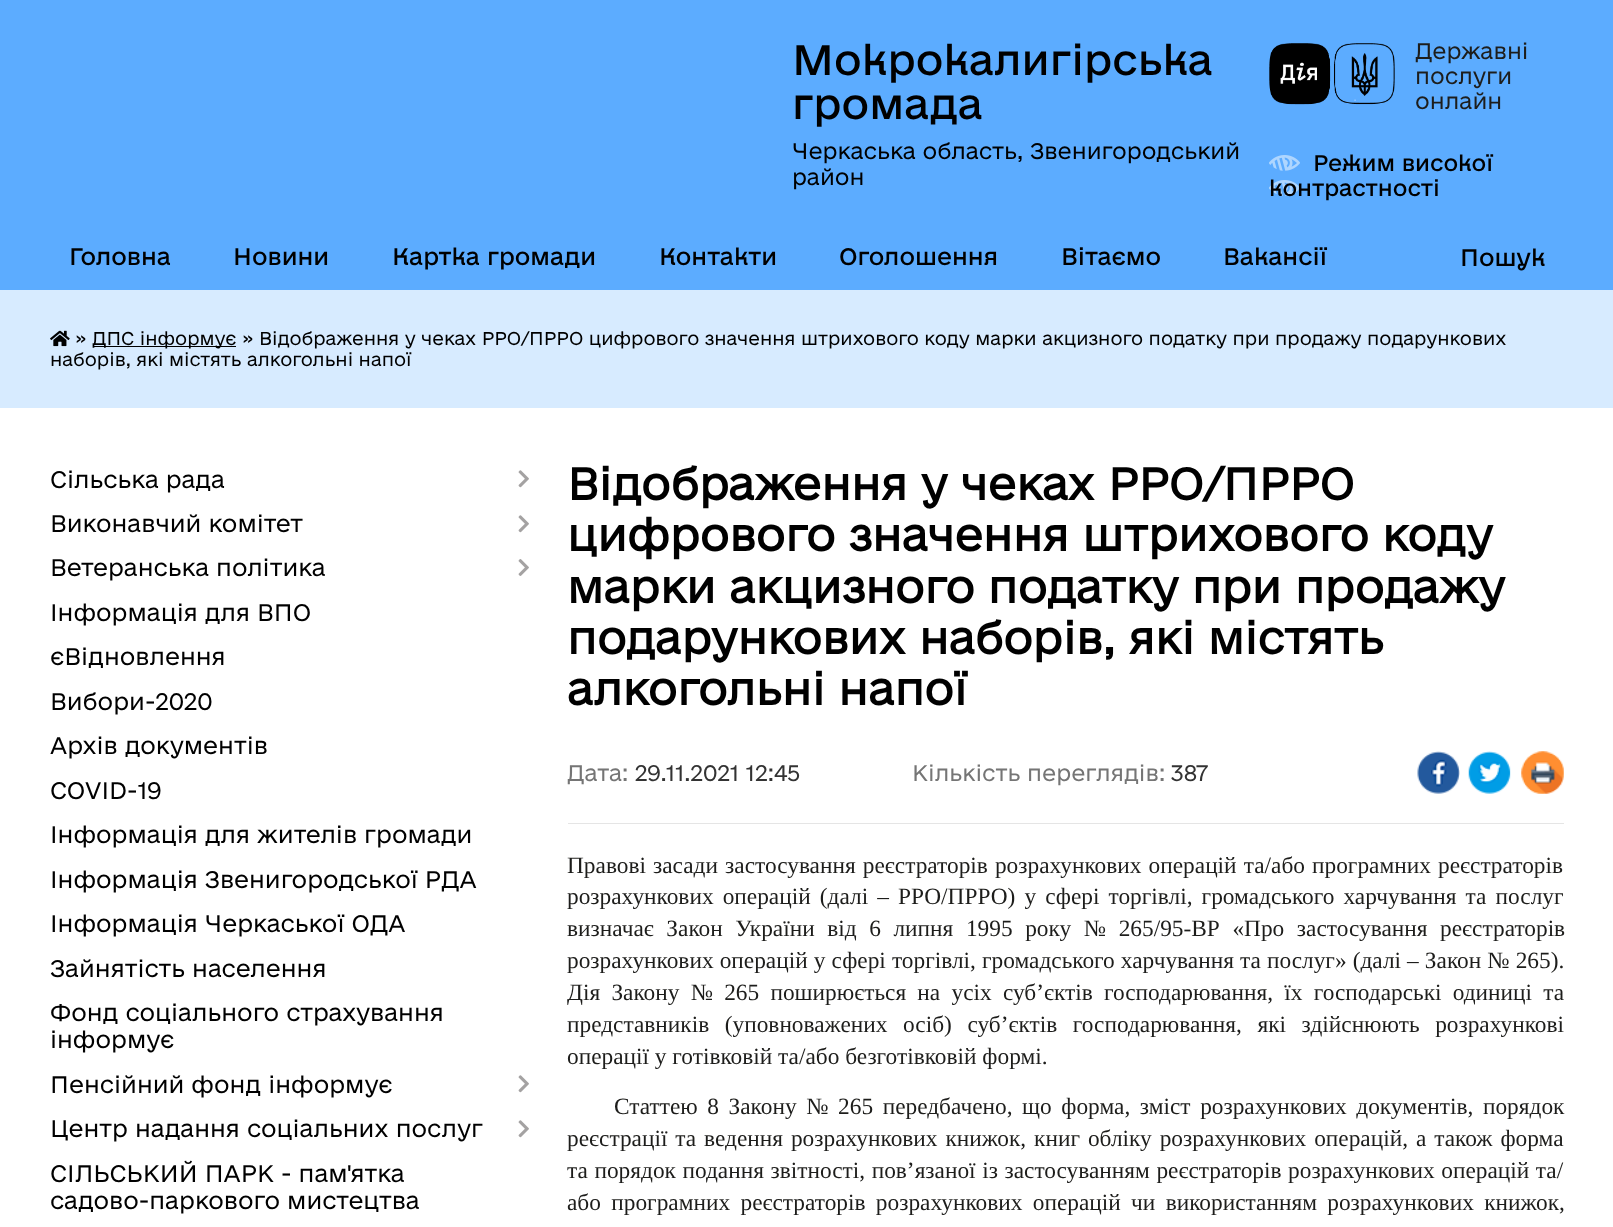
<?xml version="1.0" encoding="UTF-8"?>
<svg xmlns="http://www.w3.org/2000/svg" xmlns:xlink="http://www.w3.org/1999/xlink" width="1613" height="1227">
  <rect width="100%" height="100%" fill="#ffffff" />
  <rect width="1613" height="290" fill="#5cacff" />
  <image x="1269" y="43" width="126" height="62" xlink:href="image1.png" />
  <image x="1269" y="155" width="31" height="41" xlink:href="image2.png" />
  <rect y="290" width="1613" height="118" fill="#d7ebff" />
  <image x="50" y="330" width="20" height="17" xlink:href="image3.png" />
  <rect x="93" y="346" width="143" height="1" fill="#000000" />
  <image x="518" y="470" width="11" height="18" xlink:href="image4.png" />
  <image x="518" y="515" width="11" height="18" xlink:href="image4.png" />
  <image x="518" y="559" width="11" height="17" xlink:href="image5.png" />
  <image x="518" y="1075" width="11" height="18" xlink:href="image4.png" />
  <image x="518" y="1120" width="11" height="18" xlink:href="image4.png" />
  <image x="1417" y="751" width="43" height="43" xlink:href="image6.png" />
  <image x="1468" y="751" width="43" height="43" xlink:href="image7.png" />
  <image x="1521" y="751" width="43" height="43" xlink:href="image8.png" />
  <rect x="568" y="823" width="996" height="1" fill="#e5e5e5" />
  <text x="792" y="75" style="font-family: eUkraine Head; font-size: 40px; fill: #000000">Мокрокалигірська</text>
  <text x="792" y="119" style="font-family: eUkraine Head; font-size: 40px; fill: #000000">громада</text>
  <text x="792" y="159" style="font-family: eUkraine; font-size: 21.25px; font-weight: 300; fill: #000000">Черкаська область, Звенигородський</text>
  <text x="792" y="185" style="font-family: eUkraine; font-size: 21.25px; font-weight: 300; fill: #000000">район</text>
  <text x="1415" y="59" style="font-family: eUkraine; font-size: 21.25px; font-weight: 300; fill: #1d1d1b">Державні</text>
  <text x="1415" y="84" style="font-family: eUkraine; font-size: 21.25px; font-weight: 300; fill: #1d1d1b">послуги</text>
  <text x="1415" y="109" style="font-family: eUkraine; font-size: 21.25px; font-weight: 300; fill: #1d1d1b">онлайн</text>
  <text x="1313" y="171" style="font-family: eUkraine Head; font-size: 21.25px; fill: #000000">Режим високої</text>
  <text x="1269" y="196" style="font-family: eUkraine Head; font-size: 21.25px; fill: #000000">контрастності</text>
  <text x="69" y="265" style="font-family: eUkraine Head; font-size: 22.5px; fill: #000000">Головна</text>
  <text x="233" y="265" style="font-family: eUkraine Head; font-size: 22.5px; fill: #000000">Новини</text>
  <text x="392" y="265" style="font-family: eUkraine Head; font-size: 22.5px; fill: #000000">Картка громади</text>
  <text x="659" y="265" style="font-family: eUkraine Head; font-size: 22.5px; fill: #000000">Контакти</text>
  <text x="839" y="265" style="font-family: eUkraine Head; font-size: 22.5px; fill: #000000">Оголошення</text>
  <text x="1061" y="265" style="font-family: eUkraine Head; font-size: 22.5px; fill: #000000">Вітаємо</text>
  <text x="1223" y="265" style="font-family: eUkraine Head; font-size: 22.5px; fill: #000000">Вакансії</text>
  <text x="1460" y="266" style="font-family: eUkraine Head; font-size: 22.5px; fill: #000000">Пошук</text>
  <text x="75" y="345" style="font-family: eUkraine; font-size: 17.5px; font-weight: 300; fill: #000000">»</text>
  <text x="92" y="345" style="font-family: eUkraine; font-size: 17.5px; font-weight: 300; fill: #000000">ДПС інформує » Відображення у чеках РРО/ПРРО цифрового значення штрихового коду марки акцизного податку при продажу подарункових</text>
  <text x="50" y="366" style="font-family: eUkraine; font-size: 17.5px; font-weight: 300; fill: #000000">наборів, які містять алкогольні напої</text>
  <text x="50" y="488" style="font-family: eUkraine; font-size: 22.5px; font-weight: 300; fill: #000000">Сільська рада</text>
  <text x="50" y="532" style="font-family: eUkraine; font-size: 22.5px; font-weight: 300; fill: #000000">Виконавчий комітет</text>
  <text x="50" y="576" style="font-family: eUkraine; font-size: 22.5px; font-weight: 300; fill: #000000">Ветеранська політика</text>
  <text x="50" y="621" style="font-family: eUkraine; font-size: 22.5px; font-weight: 300; fill: #000000">Інформація для ВПО</text>
  <text x="50" y="665" style="font-family: eUkraine; font-size: 22.5px; font-weight: 300; fill: #000000">єВідновлення</text>
  <text x="50" y="710" style="font-family: eUkraine; font-size: 22.5px; font-weight: 300; fill: #000000">Вибори-2020</text>
  <text x="50" y="754" style="font-family: eUkraine; font-size: 22.5px; font-weight: 300; fill: #000000">Архів документів</text>
  <text x="50" y="799" style="font-family: eUkraine; font-size: 22.5px; font-weight: 300; fill: #000000">COVID-19</text>
  <text x="50" y="843" style="font-family: eUkraine; font-size: 22.5px; font-weight: 300; fill: #000000">Інформація для жителів громади</text>
  <text x="50" y="888" style="font-family: eUkraine; font-size: 22.5px; font-weight: 300; fill: #000000">Інформація Звенигородської РДА</text>
  <text x="50" y="932" style="font-family: eUkraine; font-size: 22.5px; font-weight: 300; fill: #000000">Інформація Черкаської ОДА</text>
  <text x="50" y="977" style="font-family: eUkraine; font-size: 22.5px; font-weight: 300; fill: #000000">Зайнятість населення</text>
  <text x="50" y="1021" style="font-family: eUkraine; font-size: 22.5px; font-weight: 300; fill: #000000">Фонд соціального страхування</text>
  <text x="50" y="1048" style="font-family: eUkraine; font-size: 22.5px; font-weight: 300; fill: #000000">інформує</text>
  <text x="50" y="1093" style="font-family: eUkraine; font-size: 22.5px; font-weight: 300; fill: #000000">Пенсійний фонд інформує</text>
  <text x="50" y="1137" style="font-family: eUkraine; font-size: 22.5px; font-weight: 300; fill: #000000">Центр надання соціальних послуг</text>
  <text x="50" y="1182" style="font-family: eUkraine; font-size: 22.5px; font-weight: 300; fill: #000000">СІЛЬСЬКИЙ ПАРК - пам'ятка</text>
  <text x="50" y="1209" style="font-family: eUkraine; font-size: 22.5px; font-weight: 300; fill: #000000">садово-паркового мистецтва</text>
  <text x="567" y="500" style="font-family: eUkraine; font-size: 42.5px; font-weight: bold; fill: #000000">Відображення у чеках РРО/ПРРО</text>
  <text x="567" y="551" style="font-family: eUkraine; font-size: 42.5px; font-weight: bold; fill: #000000">цифрового значення штрихового коду</text>
  <text x="567" y="603" style="font-family: eUkraine; font-size: 42.5px; font-weight: bold; fill: #000000">марки акцизного податку при продажу</text>
  <text x="567" y="654" style="font-family: eUkraine; font-size: 42.5px; font-weight: bold; fill: #000000">подарункових наборів, які містять</text>
  <text x="567" y="705" style="font-family: eUkraine; font-size: 42.5px; font-weight: bold; fill: #000000">алкогольні напої</text>
  <text x="567" y="781" style="font-family: eUkraine; font-size: 21.25px; font-weight: 300; fill: #757575">Дата:</text>
  <text x="635" y="781" style="font-family: eUkraine; font-size: 21.25px; font-weight: 300; fill: #333333">29.11.2021 12:45</text>
  <text x="912" y="781" style="font-family: eUkraine; font-size: 21.25px; font-weight: 300; fill: #757575">Кількість переглядів:</text>
  <text x="1171" y="781" style="font-family: eUkraine; font-size: 21.25px; font-weight: 300; fill: #333333">387</text>
  <text x="567" y="873" word-spacing="1.25" style="font-family: Liberation Serif; font-size: 23.35px; fill: #1d1d1b">Правові засади застосування реєстраторів розрахункових операцій та/або програмних реєстраторів</text>
  <text x="567" y="904" word-spacing="3.25" style="font-family: Liberation Serif; font-size: 23.35px; fill: #1d1d1b">розрахункових операцій (далі – РРО/ПРРО) у сфері торгівлі, громадського харчування та послуг</text>
  <text x="567" y="936" word-spacing="6.75" style="font-family: Liberation Serif; font-size: 23.35px; fill: #1d1d1b">визначає Закон України від 6 липня 1995 року № 265/95-ВР «Про застосування реєстраторів</text>
  <text x="567" y="968" word-spacing="0.25" style="font-family: Liberation Serif; font-size: 23.35px; fill: #1d1d1b">розрахункових операцій у сфері торгівлі, громадського харчування та послуг» (далі – Закон № 265).</text>
  <text x="567" y="1000" word-spacing="5.4" style="font-family: Liberation Serif; font-size: 23.35px; fill: #1d1d1b">Дія Закону № 265 поширюється на усіх суб’єктів господарювання, їх господарські одиниці та</text>
  <text x="567" y="1032" word-spacing="9.75" style="font-family: Liberation Serif; font-size: 23.35px; fill: #1d1d1b">представників (уповноважених осіб) суб’єктів господарювання, які здійснюють розрахункові</text>
  <text x="567" y="1064" style="font-family: Liberation Serif; font-size: 23.35px; fill: #1d1d1b">операції у готівковій та/або безготівковій формі.</text>
  <text x="614" y="1114" word-spacing="3.75" style="font-family: Liberation Serif; font-size: 23.35px; fill: #1d1d1b">Статтею 8 Закону № 265 передбачено, що форма, зміст розрахункових документів, порядок</text>
  <text x="567" y="1146" word-spacing="2.1" style="font-family: Liberation Serif; font-size: 23.35px; fill: #1d1d1b">реєстрації та ведення розрахункових книжок, книг обліку розрахункових операцій, а також форма</text>
  <text x="567" y="1178" word-spacing="0.75" style="font-family: Liberation Serif; font-size: 23.35px; fill: #1d1d1b">та порядок подання звітності, пов’язаної із застосуванням реєстраторів розрахункових операцій та/</text>
  <text x="567" y="1210" word-spacing="4.5" style="font-family: Liberation Serif; font-size: 23.35px; fill: #1d1d1b">або програмних реєстраторів розрахункових операцій чи використанням розрахункових книжок,</text>
</svg>
